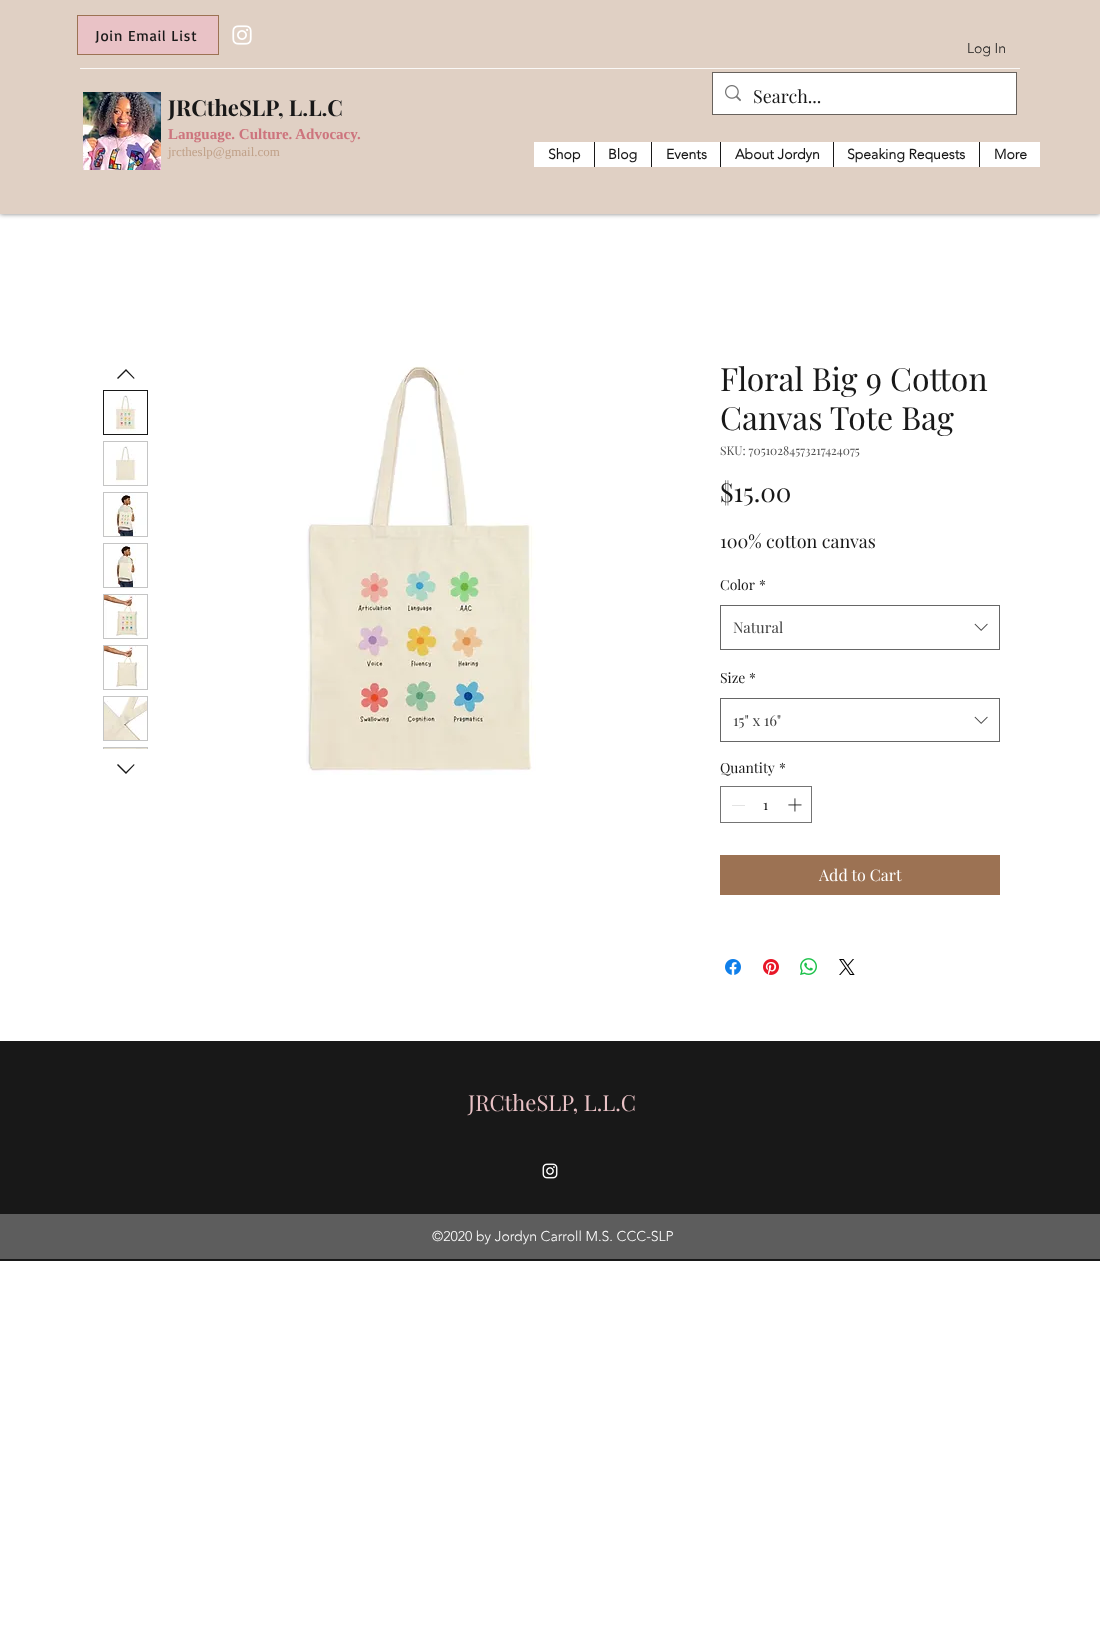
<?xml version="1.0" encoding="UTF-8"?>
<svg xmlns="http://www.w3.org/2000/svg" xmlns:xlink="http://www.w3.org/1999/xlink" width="1100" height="1628">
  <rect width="100%" height="100%" fill="#ffffff" />
  <rect width="1100" height="214" fill="#000000" fill-opacity="0.5" filter="blur(2.5px)" />
  <rect width="1100" height="214" fill="#e0d0c4" />
  <rect x="77.5" y="15.5" width="141" height="39" fill="#e9c2c6" stroke="#9c7253" />
  <image x="232" y="25" width="20" height="20" xlink:href="image1.png" />
  <rect x="80" y="68" width="940" height="1" fill="#faf8f6" />
  <image x="83" y="92" width="78" height="78" xlink:href="image2.png" />
  <rect x="712.5" y="72.5" width="304" height="42" fill="none" stroke="#68625d" />
  <rect x="713" y="73" width="303" height="41" fill="#ffffff" />
  <image x="725" y="85" width="16" height="17" xlink:href="image3.png" />
  <rect x="534" y="142" width="506" height="25" fill="#ffffff" />
  <rect x="594" y="142" width="1" height="25" fill="#181818" />
  <rect x="651" y="142" width="1" height="25" fill="#181818" />
  <rect x="720" y="142" width="1" height="25" fill="#181818" />
  <rect x="833" y="142" width="1" height="25" fill="#181818" />
  <rect x="979" y="142" width="1" height="25" fill="#181818" />
  <path d="M 126 369 l 8.5 9 l -0.5 1 l -8 -8 l -8 8 l -1 -1 z" fill="#181818" fill-rule="evenodd" />
  <rect x="103.5" y="390.5" width="44" height="44" fill="none" stroke="#181818" />
  <image x="104" y="391" width="43" height="43" xlink:href="image4.png" />
  <rect x="103" y="441" width="45" height="45" fill="#c5c5c5" />
  <image x="104" y="442" width="43" height="43" xlink:href="image5.png" />
  <rect x="103" y="492" width="45" height="45" fill="#c5c5c5" />
  <image x="104" y="493" width="43" height="43" xlink:href="image6.png" />
  <rect x="103" y="543" width="45" height="45" fill="#c5c5c5" />
  <image x="104" y="544" width="43" height="43" xlink:href="image7.png" />
  <rect x="103" y="594" width="45" height="45" fill="#c5c5c5" />
  <image x="104" y="595" width="43" height="43" xlink:href="image8.png" />
  <rect x="103" y="645" width="45" height="45" fill="#c5c5c5" />
  <image x="104" y="646" width="43" height="43" xlink:href="image9.png" />
  <rect x="103" y="696" width="45" height="45" fill="#c5c5c5" />
  <image x="104" y="697" width="43" height="43" xlink:href="image10.png" />
  <rect x="103" y="747" width="45" height="2" fill="#c5c5c5" />
  <image x="104" y="748" width="43" height="1" xlink:href="image11.png" />
  <path d="M 134 764 l 0.5 1 l -8.5 9 l -9 -9 l 1 -1 l 8 8 z" fill="#181818" fill-rule="evenodd" />
  <image x="306" y="366" width="230" height="409" xlink:href="image12.png" />
  <rect x="720.5" y="605.5" width="279" height="44" fill="none" stroke="#666666" />
  <image x="974" y="623" width="14" height="8" xlink:href="image13.png" />
  <rect x="720.5" y="698.5" width="279" height="43" fill="none" stroke="#666666" />
  <image x="974" y="716" width="14" height="8" xlink:href="image13.png" />
  <rect x="720.5" y="786.5" width="91" height="36" fill="none" stroke="#747474" />
  <rect x="732" y="805" width="13" height="1" fill="#e3e3e3" />
  <image x="788" y="798" width="14" height="14" xlink:href="image14.png" />
  <rect x="720" y="855" width="280" height="40" fill="#9c7253" />
  <image x="725" y="959" width="16" height="16" xlink:href="image15.png" />
  <image x="763" y="959" width="16" height="16" xlink:href="image16.png" />
  <image x="800" y="958" width="17" height="17" xlink:href="image17.png" />
  <image x="839" y="959" width="16" height="16" xlink:href="image18.png" />
  <rect y="1041" width="1100" height="220" fill="#181818" />
  <image x="542" y="1163" width="16" height="16" xlink:href="image19.png" />
  <rect y="1214" width="1100" height="45" fill="#5d5d5d" />
  <text x="95" y="41" style="font-family: Basic; font-size: 15px; letter-spacing: 0.75px; fill: #181818">Join Email List</text>
  <text x="967" y="53" style="font-family: 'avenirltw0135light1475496'; font-size: 14px; font-weight: 300; fill: #181818">Log In</text>
  <text x="168" y="116" style="font-family: Playfair Display; font-size: 22px; font-weight: bold; fill: #181818">JRCtheSLP, L.L.C</text>
  <text x="168" y="139" style="font-family: Liberation Serif; font-size: 15px; font-weight: bold; fill: #cd747d">Language. Culture. Advocacy.</text>
  <text x="168" y="156" style="font-family: Liberation Serif; font-size: 13px; fill: #c0a189">jrctheslp@gmail.com</text>
  <text x="753" y="103" style="font-family: Playfair Display; font-size: 18px; fill: #181818">Search...</text>
  <text x="548" y="159" style="font-family: 'avenirltw0135light1475496'; font-size: 14px; font-weight: bold; fill: #181818">Shop</text>
  <text x="608" y="159" style="font-family: 'avenirltw0135light1475496'; font-size: 14px; font-weight: bold; fill: #181818">Blog</text>
  <text x="666" y="159" style="font-family: 'avenirltw0135light1475496'; font-size: 14px; font-weight: bold; fill: #181818">Events</text>
  <text x="735" y="159" style="font-family: 'avenirltw0135light1475496'; font-size: 14px; font-weight: bold; fill: #181818">About Jordyn</text>
  <text x="847" y="159" style="font-family: 'avenirltw0135light1475496'; font-size: 14px; font-weight: bold; fill: #181818">Speaking Requests</text>
  <text x="994" y="159" style="font-family: 'avenirltw0135light1475496'; font-size: 14px; font-weight: bold; fill: #181818">More</text>
  <text x="720" y="391" style="font-family: Playfair Display; font-size: 32px; fill: #181818">Floral Big 9 Cotton</text>
  <text x="720" y="430" style="font-family: Playfair Display; font-size: 32px; fill: #181818">Canvas Tote Bag</text>
  <text x="720" y="455" style="font-family: Playfair Display; font-size: 12px; fill: #525252">SKU: 70510284573217424075</text>
  <text x="720" y="502" style="font-family: Playfair Display; font-size: 26px; fill: #181818">$15.00</text>
  <text x="720" y="548" style="font-family: Playfair Display; font-size: 18px; fill: #181818">100% cotton canvas</text>
  <text x="720" y="590" style="font-family: Playfair Display; font-size: 14px; fill: #181818">Color</text>
  <text x="759" y="590" style="font-family: Playfair Display; font-size: 14px; fill: #181818">*</text>
  <text x="733" y="633" style="font-family: Playfair Display; font-size: 15px; fill: #444444">Natural</text>
  <text x="720" y="683" style="font-family: Playfair Display; font-size: 14px; fill: #181818">Size</text>
  <text x="749" y="683" style="font-family: Playfair Display; font-size: 14px; fill: #181818">*</text>
  <text x="733" y="726" style="font-family: Playfair Display; font-size: 15px; fill: #444444">15" x 16"</text>
  <text x="720" y="773" style="font-family: Playfair Display; font-size: 14px; fill: #181818">Quantity</text>
  <text x="779" y="773" style="font-family: Playfair Display; font-size: 14px; fill: #181818">*</text>
  <text x="763" y="810" style="font-family: Playfair Display; font-size: 14px; fill: #181818">1</text>
  <text x="819" y="881" style="font-family: Playfair Display; font-size: 16px; fill: #ffffff">Add to Cart</text>
  <text x="468" y="1111" style="font-family: Playfair Display; font-size: 22px; fill: #e9c2c6">JRCtheSLP, L.L.C</text>
  <text x="432" y="1241" style="font-family: 'avenirltw0135light1475496'; font-size: 14px; font-weight: 300; fill: #ffffff">©2020 by Jordyn Carroll M.S. CCC-SLP</text>
</svg>
